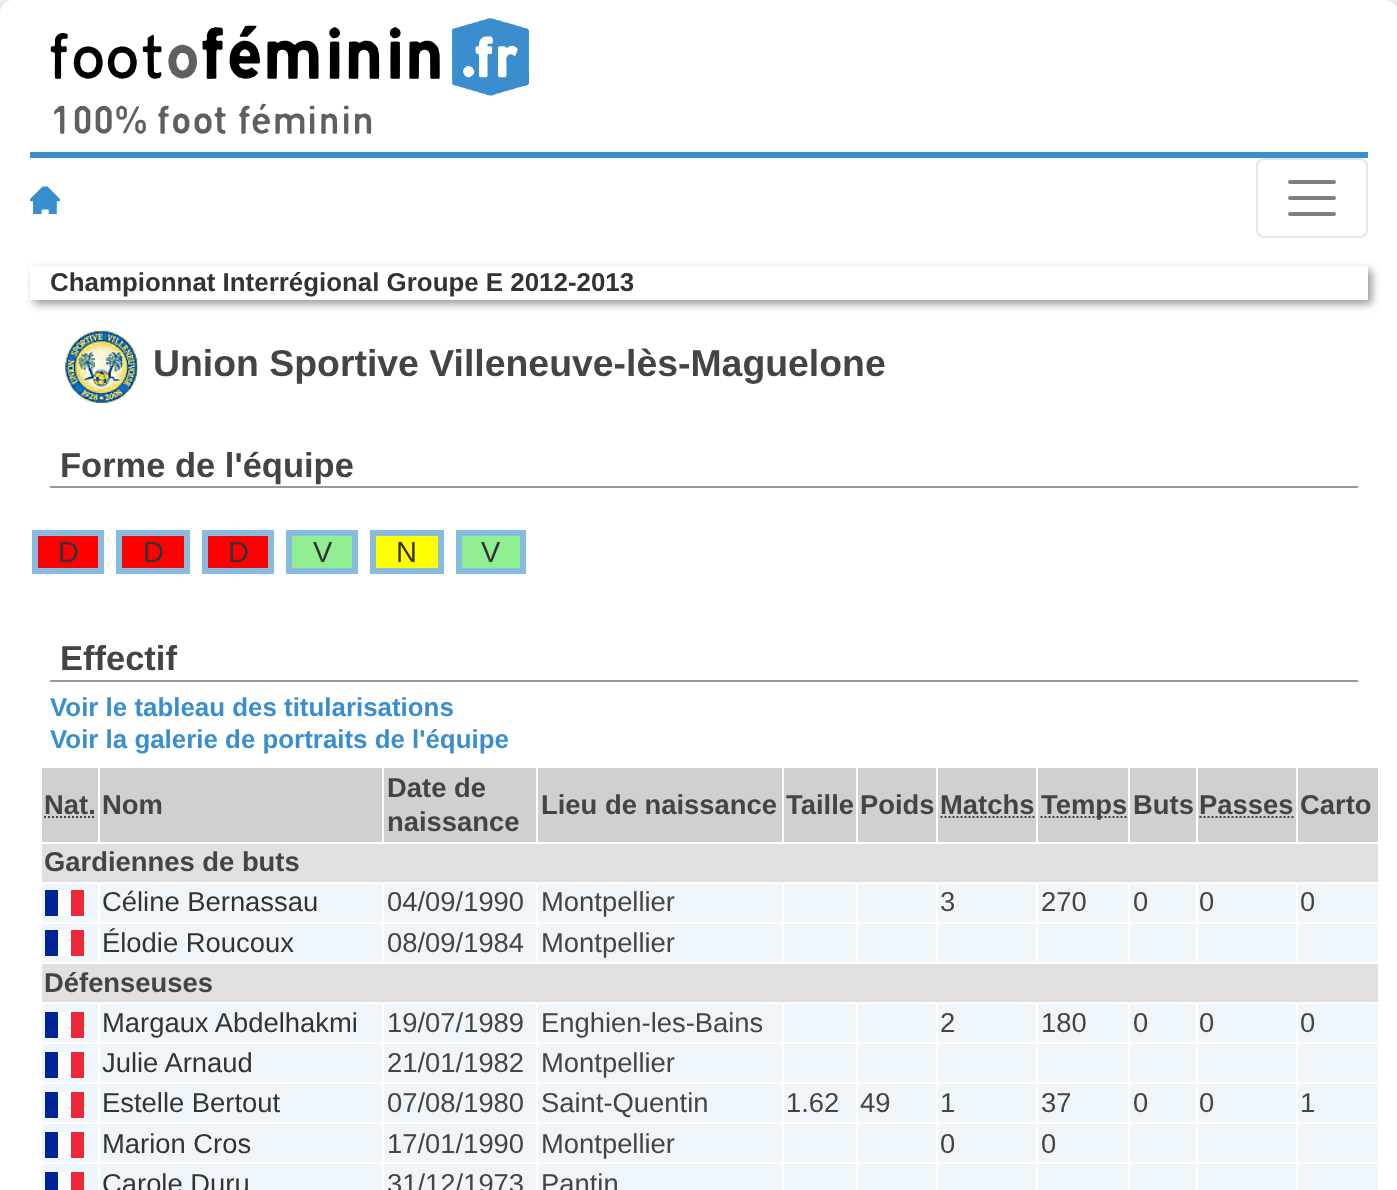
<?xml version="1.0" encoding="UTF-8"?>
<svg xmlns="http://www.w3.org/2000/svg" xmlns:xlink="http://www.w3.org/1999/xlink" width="1397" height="1190">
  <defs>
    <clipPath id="clip1"><path d="M 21 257 h 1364 v 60 h -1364 z m 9 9 h 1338 v 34 h -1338 z" clip-rule="evenodd" /></clipPath>
  </defs>
  <rect width="100%" height="100%" fill="#ffffff" />
  <rect y="2" width="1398" height="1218" rx="12" fill="#999999" filter="blur(6px)" />
  <rect width="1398" height="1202" rx="12" fill="#ffffff" />
  <image x="50" y="18" width="480" height="116" xlink:href="image1.png" />
  <rect x="30" y="152" width="1338" height="6" fill="#398ece" />
  <image x="30" y="186" width="30" height="28" xlink:href="image2.png" />
  <rect x="1257" y="159" width="110" height="78" rx="7" fill="none" stroke="#e6e6e6" stroke-width="2" />
  <path d="M 1290 182 h 44 m -44 16 h 44 m -44 16 h 44" fill="none" stroke="#808080" stroke-width="4" stroke-linecap="round" />
  <g clip-path="url(#clip1)">
    <rect x="34" y="270" width="1338" height="34" fill="#999999" filter="blur(4px)" />
  </g>
  <image x="64" y="330" width="74" height="74" xlink:href="image3.png" />
  <rect x="50" y="486" width="1308" height="2" fill="#999999" />
  <rect x="35" y="533" width="66" height="38" fill="#ff0000" stroke="#87bce1" stroke-width="6" />
  <rect x="119" y="533" width="68" height="38" fill="#ff0000" stroke="#87bce1" stroke-width="6" />
  <rect x="205" y="533" width="66" height="38" fill="#ff0000" stroke="#87bce1" stroke-width="6" />
  <rect x="289" y="533" width="66" height="38" fill="#90ee90" stroke="#87bce1" stroke-width="6" />
  <rect x="373" y="533" width="68" height="38" fill="#ffff00" stroke="#87bce1" stroke-width="6" />
  <rect x="459" y="533" width="64" height="38" fill="#90ee90" stroke="#87bce1" stroke-width="6" />
  <rect x="50" y="680" width="1308" height="2" fill="#999999" />
  <rect x="42" y="768" width="56" height="74" fill="#d0d0d0" />
  <path d="M 44 817 h 51.5" fill="none" stroke="#444444" stroke-width="2" stroke-dasharray="2 2" />
  <rect x="100" y="768" width="282" height="74" fill="#d0d0d0" />
  <rect x="384" y="768" width="152" height="74" fill="#d0d0d0" />
  <rect x="538" y="768" width="244" height="74" fill="#d0d0d0" />
  <rect x="784" y="768" width="72" height="74" fill="#d0d0d0" />
  <rect x="858" y="768" width="78" height="74" fill="#d0d0d0" />
  <rect x="938" y="768" width="98" height="74" fill="#d0d0d0" />
  <path d="M 940.5 817 h 94" fill="none" stroke="#444444" stroke-width="2" stroke-dasharray="2 2" />
  <rect x="1038" y="768" width="90" height="74" fill="#d0d0d0" />
  <path d="M 1040.5 817 h 86" fill="none" stroke="#444444" stroke-width="2" stroke-dasharray="2 2" />
  <rect x="1130" y="768" width="66" height="74" fill="#d0d0d0" />
  <rect x="1198" y="768" width="98" height="74" fill="#d0d0d0" />
  <path d="M 1199.5 817 h 94" fill="none" stroke="#444444" stroke-width="2" stroke-dasharray="2 2" />
  <rect x="1298" y="768" width="80" height="74" fill="#d0d0d0" />
  <rect x="42" y="844" width="1336" height="38" fill="#e0e0e0" />
  <rect x="42" y="884" width="56" height="38" fill="#eff6fb" />
  <rect x="45" y="890" width="13" height="26" fill="#002395" />
  <rect x="58" y="890" width="13" height="26" fill="#ffffff" />
  <rect x="71" y="890" width="13" height="26" fill="#ed2939" />
  <rect x="100" y="884" width="282" height="38" fill="#eff6fb" />
  <rect x="384" y="884" width="152" height="38" fill="#eff6fb" />
  <rect x="538" y="884" width="244" height="38" fill="#eff6fb" />
  <rect x="784" y="884" width="72" height="38" fill="#eff6fb" />
  <rect x="858" y="884" width="78" height="38" fill="#eff6fb" />
  <rect x="938" y="884" width="98" height="38" fill="#eff6fb" />
  <rect x="1038" y="884" width="90" height="38" fill="#eff6fb" />
  <rect x="1130" y="884" width="66" height="38" fill="#eff6fb" />
  <rect x="1198" y="884" width="98" height="38" fill="#eff6fb" />
  <rect x="1298" y="884" width="80" height="38" fill="#eff6fb" />
  <rect x="42" y="924" width="56" height="38" fill="#eff6fb" />
  <rect x="45" y="930" width="13" height="26" fill="#002395" />
  <rect x="58" y="930" width="13" height="26" fill="#ffffff" />
  <rect x="71" y="930" width="13" height="26" fill="#ed2939" />
  <rect x="100" y="924" width="282" height="38" fill="#eff6fb" />
  <rect x="384" y="924" width="152" height="38" fill="#eff6fb" />
  <rect x="538" y="924" width="244" height="38" fill="#eff6fb" />
  <rect x="784" y="924" width="72" height="38" fill="#eff6fb" />
  <rect x="858" y="924" width="78" height="38" fill="#eff6fb" />
  <rect x="938" y="924" width="98" height="38" fill="#eff6fb" />
  <rect x="1038" y="924" width="90" height="38" fill="#eff6fb" />
  <rect x="1130" y="924" width="66" height="38" fill="#eff6fb" />
  <rect x="1198" y="924" width="98" height="38" fill="#eff6fb" />
  <rect x="1298" y="924" width="80" height="38" fill="#eff6fb" />
  <rect x="42" y="964" width="1336" height="38" fill="#e0e0e0" />
  <rect x="42" y="1004" width="56" height="38" fill="#eff6fb" />
  <rect x="45" y="1012" width="13" height="26" fill="#002395" />
  <rect x="58" y="1012" width="13" height="26" fill="#ffffff" />
  <rect x="71" y="1012" width="13" height="26" fill="#ed2939" />
  <rect x="100" y="1004" width="282" height="38" fill="#eff6fb" />
  <rect x="384" y="1004" width="152" height="38" fill="#eff6fb" />
  <rect x="538" y="1004" width="244" height="38" fill="#eff6fb" />
  <rect x="784" y="1004" width="72" height="38" fill="#eff6fb" />
  <rect x="858" y="1004" width="78" height="38" fill="#eff6fb" />
  <rect x="938" y="1004" width="98" height="38" fill="#eff6fb" />
  <rect x="1038" y="1004" width="90" height="38" fill="#eff6fb" />
  <rect x="1130" y="1004" width="66" height="38" fill="#eff6fb" />
  <rect x="1198" y="1004" width="98" height="38" fill="#eff6fb" />
  <rect x="1298" y="1004" width="80" height="38" fill="#eff6fb" />
  <rect x="42" y="1044" width="56" height="38" fill="#eff6fb" />
  <rect x="45" y="1052" width="13" height="26" fill="#002395" />
  <rect x="58" y="1052" width="13" height="26" fill="#ffffff" />
  <rect x="71" y="1052" width="13" height="26" fill="#ed2939" />
  <rect x="100" y="1044" width="282" height="38" fill="#eff6fb" />
  <rect x="384" y="1044" width="152" height="38" fill="#eff6fb" />
  <rect x="538" y="1044" width="244" height="38" fill="#eff6fb" />
  <rect x="784" y="1044" width="72" height="38" fill="#eff6fb" />
  <rect x="858" y="1044" width="78" height="38" fill="#eff6fb" />
  <rect x="938" y="1044" width="98" height="38" fill="#eff6fb" />
  <rect x="1038" y="1044" width="90" height="38" fill="#eff6fb" />
  <rect x="1130" y="1044" width="66" height="38" fill="#eff6fb" />
  <rect x="1198" y="1044" width="98" height="38" fill="#eff6fb" />
  <rect x="1298" y="1044" width="80" height="38" fill="#eff6fb" />
  <rect x="42" y="1084" width="56" height="38" fill="#eff6fb" />
  <rect x="45" y="1092" width="13" height="26" fill="#002395" />
  <rect x="58" y="1092" width="13" height="26" fill="#ffffff" />
  <rect x="71" y="1092" width="13" height="26" fill="#ed2939" />
  <rect x="100" y="1084" width="282" height="38" fill="#eff6fb" />
  <rect x="384" y="1084" width="152" height="38" fill="#eff6fb" />
  <rect x="538" y="1084" width="244" height="38" fill="#eff6fb" />
  <rect x="784" y="1084" width="72" height="38" fill="#eff6fb" />
  <rect x="858" y="1084" width="78" height="38" fill="#eff6fb" />
  <rect x="938" y="1084" width="98" height="38" fill="#eff6fb" />
  <rect x="1038" y="1084" width="90" height="38" fill="#eff6fb" />
  <rect x="1130" y="1084" width="66" height="38" fill="#eff6fb" />
  <rect x="1198" y="1084" width="98" height="38" fill="#eff6fb" />
  <rect x="1298" y="1084" width="80" height="38" fill="#eff6fb" />
  <rect x="42" y="1124" width="56" height="38" fill="#eff6fb" />
  <rect x="45" y="1132" width="13" height="26" fill="#002395" />
  <rect x="58" y="1132" width="13" height="26" fill="#ffffff" />
  <rect x="71" y="1132" width="13" height="26" fill="#ed2939" />
  <rect x="100" y="1124" width="282" height="38" fill="#eff6fb" />
  <rect x="384" y="1124" width="152" height="38" fill="#eff6fb" />
  <rect x="538" y="1124" width="244" height="38" fill="#eff6fb" />
  <rect x="784" y="1124" width="72" height="38" fill="#eff6fb" />
  <rect x="858" y="1124" width="78" height="38" fill="#eff6fb" />
  <rect x="938" y="1124" width="98" height="38" fill="#eff6fb" />
  <rect x="1038" y="1124" width="90" height="38" fill="#eff6fb" />
  <rect x="1130" y="1124" width="66" height="38" fill="#eff6fb" />
  <rect x="1198" y="1124" width="98" height="38" fill="#eff6fb" />
  <rect x="1298" y="1124" width="80" height="38" fill="#eff6fb" />
  <rect x="42" y="1164" width="56" height="26" fill="#eff6fb" />
  <rect x="45" y="1172" width="13" height="18" fill="#002395" />
  <rect x="58" y="1172" width="13" height="18" fill="#ffffff" />
  <rect x="71" y="1172" width="13" height="18" fill="#ed2939" />
  <rect x="100" y="1164" width="282" height="26" fill="#eff6fb" />
  <rect x="384" y="1164" width="152" height="26" fill="#eff6fb" />
  <rect x="538" y="1164" width="244" height="26" fill="#eff6fb" />
  <rect x="784" y="1164" width="72" height="26" fill="#eff6fb" />
  <rect x="858" y="1164" width="78" height="26" fill="#eff6fb" />
  <rect x="938" y="1164" width="98" height="26" fill="#eff6fb" />
  <rect x="1038" y="1164" width="90" height="26" fill="#eff6fb" />
  <rect x="1130" y="1164" width="66" height="26" fill="#eff6fb" />
  <rect x="1198" y="1164" width="98" height="26" fill="#eff6fb" />
  <rect x="1298" y="1164" width="80" height="26" fill="#eff6fb" />
  <text x="50" y="291" style="font-family: Liberation Sans; font-size: 25.9px; font-weight: bold; fill: #333333">Championnat Interrégional Groupe E 2012-2013</text>
  <text x="153" y="376" style="font-family: Liberation Sans; font-size: 37.4px; font-weight: bold; fill: #444444">Union Sportive Villeneuve-lès-Maguelone</text>
  <text x="60" y="477" style="font-family: Liberation Sans; font-size: 34.5px; font-weight: bold; fill: #444444">Forme de l'équipe</text>
  <text x="58" y="562" style="font-family: Liberation Sans; font-size: 29px; fill: #333333">D</text>
  <text x="143" y="562" style="font-family: Liberation Sans; font-size: 29px; fill: #333333">D</text>
  <text x="228" y="562" style="font-family: Liberation Sans; font-size: 29px; fill: #333333">D</text>
  <text x="313" y="562" style="font-family: Liberation Sans; font-size: 29px; fill: #333333">V</text>
  <text x="396" y="562" style="font-family: Liberation Sans; font-size: 29px; fill: #333333">N</text>
  <text x="481" y="562" style="font-family: Liberation Sans; font-size: 29px; fill: #333333">V</text>
  <text x="60" y="670" style="font-family: Liberation Sans; font-size: 34.5px; font-weight: bold; fill: #444444">Effectif</text>
  <text x="50" y="716" style="font-family: Liberation Sans; font-size: 25.9px; font-weight: bold; fill: #398ece">Voir le tableau des titularisations</text>
  <text x="50" y="748" style="font-family: Liberation Sans; font-size: 25.9px; font-weight: bold; fill: #398ece">Voir la galerie de portraits de l'équipe</text>
  <text x="44" y="814" style="font-family: Liberation Sans; font-size: 27.4px; font-weight: bold; fill: #444444">Nat.</text>
  <text x="102" y="814" style="font-family: Liberation Sans; font-size: 27.4px; font-weight: bold; fill: #444444">Nom</text>
  <text x="387" y="797" style="font-family: Liberation Sans; font-size: 27.4px; font-weight: bold; fill: #444444">Date de</text>
  <text x="387" y="831" style="font-family: Liberation Sans; font-size: 27.4px; font-weight: bold; fill: #444444">naissance</text>
  <text x="541" y="814" style="font-family: Liberation Sans; font-size: 27.4px; font-weight: bold; fill: #444444">Lieu de naissance</text>
  <text x="786" y="814" style="font-family: Liberation Sans; font-size: 27.4px; font-weight: bold; fill: #444444">Taille</text>
  <text x="860" y="814" style="font-family: Liberation Sans; font-size: 27.4px; font-weight: bold; fill: #444444">Poids</text>
  <text x="940" y="814" style="font-family: Liberation Sans; font-size: 27.4px; font-weight: bold; fill: #444444">Matchs</text>
  <text x="1041" y="814" style="font-family: Liberation Sans; font-size: 27.4px; font-weight: bold; fill: #444444">Temps</text>
  <text x="1133" y="814" style="font-family: Liberation Sans; font-size: 27.4px; font-weight: bold; fill: #444444">Buts</text>
  <text x="1199" y="814" style="font-family: Liberation Sans; font-size: 27.4px; font-weight: bold; fill: #444444">Passes</text>
  <text x="1300" y="814" style="font-family: Liberation Sans; font-size: 27.4px; font-weight: bold; fill: #444444">Carto</text>
  <text x="44" y="871" style="font-family: Liberation Sans; font-size: 27.4px; font-weight: bold; fill: #444444">Gardiennes de buts</text>
  <text x="102" y="911" style="font-family: Liberation Sans; font-size: 27.4px; fill: #333333">Céline Bernassau</text>
  <text x="387" y="911" style="font-family: Liberation Sans; font-size: 27.4px; fill: #444444">04/09/1990</text>
  <text x="541" y="911" style="font-family: Liberation Sans; font-size: 27.4px; fill: #444444">Montpellier</text>
  <text x="940" y="911" style="font-family: Liberation Sans; font-size: 27.4px; fill: #444444">3</text>
  <text x="1041" y="911" style="font-family: Liberation Sans; font-size: 27.4px; fill: #444444">270</text>
  <text x="1133" y="911" style="font-family: Liberation Sans; font-size: 27.4px; fill: #444444">0</text>
  <text x="1199" y="911" style="font-family: Liberation Sans; font-size: 27.4px; fill: #444444">0</text>
  <text x="1300" y="911" style="font-family: Liberation Sans; font-size: 27.4px; fill: #444444">0</text>
  <text x="102" y="952" style="font-family: Liberation Sans; font-size: 27.4px; fill: #333333">Élodie Roucoux</text>
  <text x="387" y="952" style="font-family: Liberation Sans; font-size: 27.4px; fill: #444444">08/09/1984</text>
  <text x="541" y="952" style="font-family: Liberation Sans; font-size: 27.4px; fill: #444444">Montpellier</text>
  <text x="44" y="992" style="font-family: Liberation Sans; font-size: 27.4px; font-weight: bold; fill: #444444">Défenseuses</text>
  <text x="102" y="1032" style="font-family: Liberation Sans; font-size: 27.4px; fill: #333333">Margaux Abdelhakmi</text>
  <text x="387" y="1032" style="font-family: Liberation Sans; font-size: 27.4px; fill: #444444">19/07/1989</text>
  <text x="541" y="1032" style="font-family: Liberation Sans; font-size: 27.4px; fill: #444444">Enghien-les-Bains</text>
  <text x="940" y="1032" style="font-family: Liberation Sans; font-size: 27.4px; fill: #444444">2</text>
  <text x="1041" y="1032" style="font-family: Liberation Sans; font-size: 27.4px; fill: #444444">180</text>
  <text x="1133" y="1032" style="font-family: Liberation Sans; font-size: 27.4px; fill: #444444">0</text>
  <text x="1199" y="1032" style="font-family: Liberation Sans; font-size: 27.4px; fill: #444444">0</text>
  <text x="1300" y="1032" style="font-family: Liberation Sans; font-size: 27.4px; fill: #444444">0</text>
  <text x="102" y="1072" style="font-family: Liberation Sans; font-size: 27.4px; fill: #333333">Julie Arnaud</text>
  <text x="387" y="1072" style="font-family: Liberation Sans; font-size: 27.4px; fill: #444444">21/01/1982</text>
  <text x="541" y="1072" style="font-family: Liberation Sans; font-size: 27.4px; fill: #444444">Montpellier</text>
  <text x="102" y="1112" style="font-family: Liberation Sans; font-size: 27.4px; fill: #333333">Estelle Bertout</text>
  <text x="387" y="1112" style="font-family: Liberation Sans; font-size: 27.4px; fill: #444444">07/08/1980</text>
  <text x="541" y="1112" style="font-family: Liberation Sans; font-size: 27.4px; fill: #444444">Saint-Quentin</text>
  <text x="786" y="1112" style="font-family: Liberation Sans; font-size: 27.4px; fill: #444444">1.62</text>
  <text x="860" y="1112" style="font-family: Liberation Sans; font-size: 27.4px; fill: #444444">49</text>
  <text x="940" y="1112" style="font-family: Liberation Sans; font-size: 27.4px; fill: #444444">1</text>
  <text x="1041" y="1112" style="font-family: Liberation Sans; font-size: 27.4px; fill: #444444">37</text>
  <text x="1133" y="1112" style="font-family: Liberation Sans; font-size: 27.4px; fill: #444444">0</text>
  <text x="1199" y="1112" style="font-family: Liberation Sans; font-size: 27.4px; fill: #444444">0</text>
  <text x="1300" y="1112" style="font-family: Liberation Sans; font-size: 27.4px; fill: #444444">1</text>
  <text x="102" y="1153" style="font-family: Liberation Sans; font-size: 27.4px; fill: #333333">Marion Cros</text>
  <text x="387" y="1153" style="font-family: Liberation Sans; font-size: 27.4px; fill: #444444">17/01/1990</text>
  <text x="541" y="1153" style="font-family: Liberation Sans; font-size: 27.4px; fill: #444444">Montpellier</text>
  <text x="940" y="1153" style="font-family: Liberation Sans; font-size: 27.4px; fill: #444444">0</text>
  <text x="1041" y="1153" style="font-family: Liberation Sans; font-size: 27.4px; fill: #444444">0</text>
  <text x="102" y="1193" style="font-family: Liberation Sans; font-size: 27.4px; fill: #333333">Carole Duru</text>
  <text x="387" y="1193" style="font-family: Liberation Sans; font-size: 27.4px; fill: #444444">31/12/1973</text>
  <text x="541" y="1193" style="font-family: Liberation Sans; font-size: 27.4px; fill: #444444">Pantin</text>
</svg>
